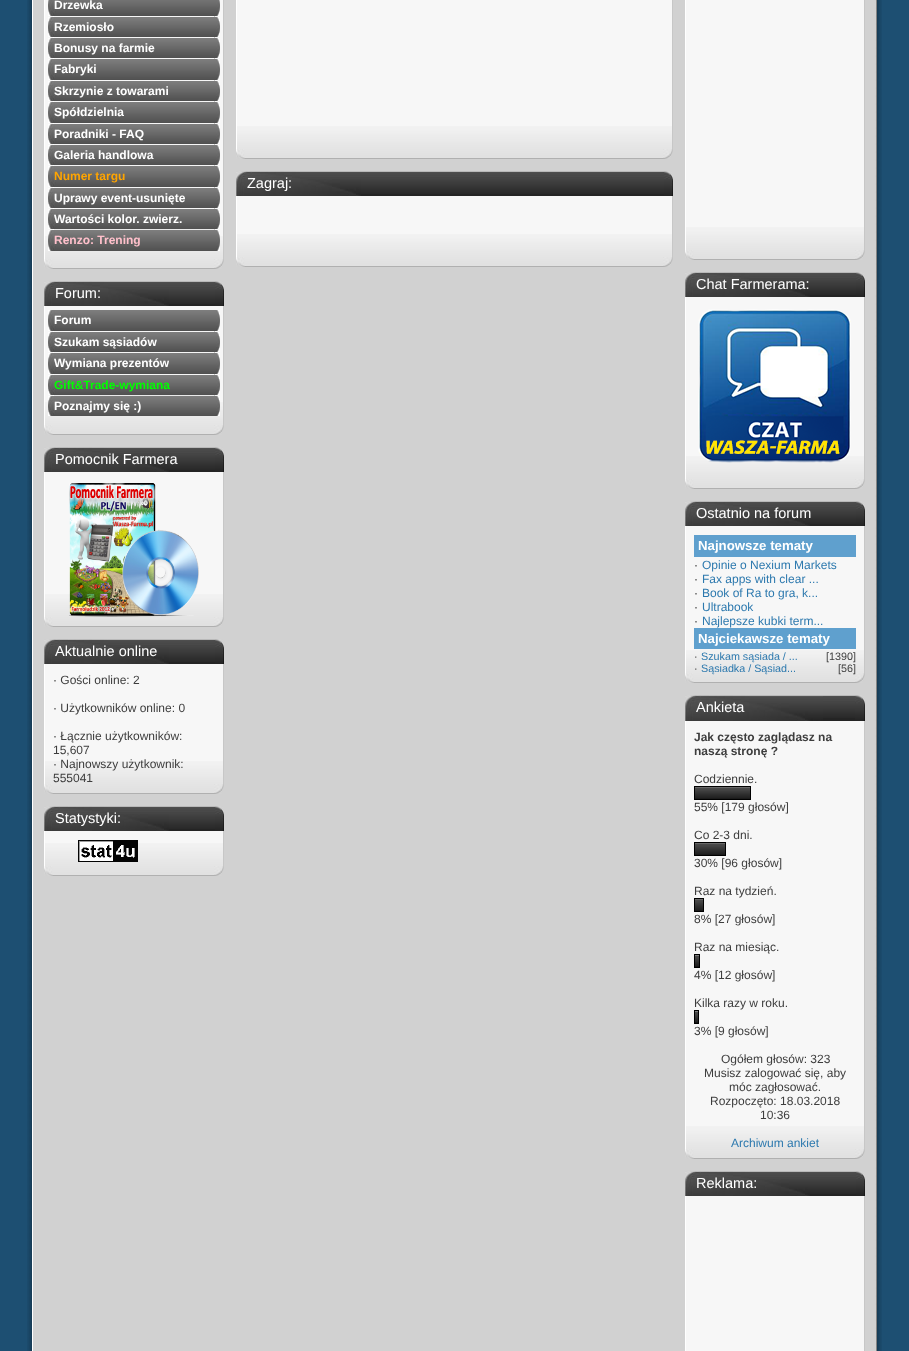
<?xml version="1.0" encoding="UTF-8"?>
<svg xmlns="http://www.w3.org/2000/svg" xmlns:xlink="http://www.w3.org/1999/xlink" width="909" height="1351">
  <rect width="100%" height="100%" fill="#1d4f72" />
  <image x="874" y="0" width="8" height="1351" xlink:href="image1.png" />
  <image x="27" y="0" width="8" height="1351" xlink:href="image2.png" />
  <rect x="35" width="839" height="1351" fill="#d1d1d1" />
  <rect x="45" width="178" height="236" fill="#f7f7f7" />
  <image x="45" y="236" width="178" height="32" xlink:href="image3.png" />
  <rect x="223" width="1" height="259" fill="#c7c7c7" />
  <rect x="53" y="268" width="161" height="1" fill="#b0b0b0" />
  <rect x="44" width="1" height="259" fill="#ffffff" />
  <image x="214" y="259" width="10" height="10" xlink:href="image4.png" />
  <image x="44" y="259" width="9" height="10" xlink:href="image5.png" />
  <image x="54" y="229" width="160" height="1" xlink:href="image6.png" />
  <rect x="214" y="16" width="1" height="214" fill="#c7c7c7" />
  <rect x="53" y="16" width="1" height="214" fill="#ffffff" />
  <image x="48" y="0" width="168" height="16" xlink:href="image7.png" />
  <image x="216" y="0" width="4" height="16" xlink:href="image8.png" />
  <image x="48" y="17" width="168" height="20" xlink:href="image9.png" />
  <image x="216" y="17" width="4" height="20" xlink:href="image10.png" />
  <image x="48" y="38" width="168" height="20" xlink:href="image9.png" />
  <image x="216" y="38" width="4" height="20" xlink:href="image10.png" />
  <image x="48" y="59" width="168" height="21" xlink:href="image11.png" />
  <image x="216" y="59" width="4" height="21" xlink:href="image12.png" />
  <image x="48" y="81" width="168" height="20" xlink:href="image9.png" />
  <image x="216" y="81" width="4" height="20" xlink:href="image10.png" />
  <image x="48" y="102" width="168" height="21" xlink:href="image11.png" />
  <image x="216" y="102" width="4" height="21" xlink:href="image12.png" />
  <image x="48" y="124" width="168" height="20" xlink:href="image9.png" />
  <image x="216" y="124" width="4" height="20" xlink:href="image10.png" />
  <image x="48" y="145" width="168" height="20" xlink:href="image9.png" />
  <image x="216" y="145" width="4" height="20" xlink:href="image10.png" />
  <image x="48" y="166" width="168" height="21" xlink:href="image11.png" />
  <image x="216" y="166" width="4" height="21" xlink:href="image12.png" />
  <image x="48" y="188" width="168" height="20" xlink:href="image9.png" />
  <image x="216" y="188" width="4" height="20" xlink:href="image10.png" />
  <image x="48" y="209" width="168" height="20" xlink:href="image9.png" />
  <image x="216" y="209" width="4" height="20" xlink:href="image10.png" />
  <image x="48" y="230" width="168" height="21" xlink:href="image11.png" />
  <image x="216" y="230" width="4" height="21" xlink:href="image12.png" />
  <rect x="169" y="304" width="46" height="2" fill="#242424" />
  <image x="169" y="281" width="46" height="23" xlink:href="image13.png" />
  <image x="215" y="281" width="9" height="25" xlink:href="image14.png" />
  <image x="44" y="281" width="125" height="25" xlink:href="image15.png" />
  <rect x="45" y="306" width="178" height="96" fill="#f7f7f7" />
  <image x="45" y="402" width="178" height="32" xlink:href="image3.png" />
  <rect x="223" y="306" width="1" height="119" fill="#c7c7c7" />
  <rect x="53" y="434" width="161" height="1" fill="#b0b0b0" />
  <rect x="44" y="306" width="1" height="119" fill="#ffffff" />
  <image x="214" y="425" width="10" height="10" xlink:href="image4.png" />
  <image x="44" y="425" width="9" height="10" xlink:href="image5.png" />
  <image x="54" y="395" width="160" height="1" xlink:href="image6.png" />
  <rect x="214" y="331" width="1" height="65" fill="#c7c7c7" />
  <rect x="53" y="331" width="1" height="65" fill="#ffffff" />
  <image x="48" y="310" width="168" height="21" xlink:href="image11.png" />
  <image x="216" y="310" width="4" height="21" xlink:href="image12.png" />
  <image x="48" y="332" width="168" height="20" xlink:href="image9.png" />
  <image x="216" y="332" width="4" height="20" xlink:href="image10.png" />
  <image x="48" y="353" width="168" height="21" xlink:href="image11.png" />
  <image x="216" y="353" width="4" height="21" xlink:href="image12.png" />
  <image x="48" y="375" width="168" height="20" xlink:href="image9.png" />
  <image x="216" y="375" width="4" height="20" xlink:href="image10.png" />
  <image x="48" y="396" width="168" height="20" xlink:href="image9.png" />
  <image x="216" y="396" width="4" height="20" xlink:href="image10.png" />
  <rect x="169" y="470" width="46" height="2" fill="#242424" />
  <image x="169" y="447" width="46" height="23" xlink:href="image13.png" />
  <image x="215" y="447" width="9" height="25" xlink:href="image14.png" />
  <image x="44" y="447" width="125" height="25" xlink:href="image15.png" />
  <rect x="45" y="472" width="178" height="122" fill="#f7f7f7" />
  <image x="45" y="594" width="178" height="32" xlink:href="image3.png" />
  <rect x="223" y="472" width="1" height="145" fill="#c7c7c7" />
  <rect x="53" y="626" width="161" height="1" fill="#b0b0b0" />
  <rect x="44" y="472" width="1" height="145" fill="#ffffff" />
  <image x="214" y="617" width="10" height="10" xlink:href="image4.png" />
  <image x="44" y="617" width="9" height="10" xlink:href="image5.png" />
  <image x="69" y="483" width="130" height="134" xlink:href="image16.png" />
  <rect x="169" y="662" width="46" height="2" fill="#242424" />
  <image x="169" y="639" width="46" height="23" xlink:href="image13.png" />
  <image x="215" y="639" width="9" height="25" xlink:href="image14.png" />
  <image x="44" y="639" width="125" height="25" xlink:href="image15.png" />
  <rect x="45" y="664" width="178" height="97" fill="#f7f7f7" />
  <image x="45" y="761" width="178" height="32" xlink:href="image3.png" />
  <rect x="223" y="664" width="1" height="120" fill="#c7c7c7" />
  <rect x="53" y="793" width="161" height="1" fill="#b0b0b0" />
  <rect x="44" y="664" width="1" height="120" fill="#ffffff" />
  <image x="214" y="784" width="10" height="10" xlink:href="image4.png" />
  <image x="44" y="784" width="9" height="10" xlink:href="image5.png" />
  <rect x="169" y="829" width="46" height="2" fill="#242424" />
  <image x="169" y="806" width="46" height="23" xlink:href="image13.png" />
  <image x="215" y="806" width="9" height="25" xlink:href="image14.png" />
  <image x="44" y="806" width="125" height="25" xlink:href="image15.png" />
  <rect x="45" y="831" width="178" height="12" fill="#f7f7f7" />
  <image x="45" y="843" width="178" height="32" xlink:href="image3.png" />
  <rect x="223" y="831" width="1" height="35" fill="#c7c7c7" />
  <rect x="53" y="875" width="161" height="1" fill="#b0b0b0" />
  <rect x="44" y="831" width="1" height="35" fill="#ffffff" />
  <image x="214" y="866" width="10" height="10" xlink:href="image4.png" />
  <image x="44" y="866" width="9" height="10" xlink:href="image5.png" />
  <image x="78" y="840" width="60" height="22" xlink:href="image17.png" />
  <rect x="237" width="435" height="126" fill="#f7f7f7" />
  <image x="237" y="126" width="435" height="32" xlink:href="image18.png" />
  <rect x="672" width="1" height="149" fill="#c7c7c7" />
  <rect x="245" y="158" width="418" height="1" fill="#b0b0b0" />
  <rect x="236" width="1" height="149" fill="#ffffff" />
  <image x="663" y="149" width="10" height="10" xlink:href="image4.png" />
  <image x="236" y="149" width="9" height="10" xlink:href="image5.png" />
  <rect x="361" y="194" width="303" height="2" fill="#242424" />
  <image x="361" y="171" width="303" height="23" xlink:href="image19.png" />
  <image x="664" y="171" width="9" height="25" xlink:href="image14.png" />
  <image x="236" y="171" width="125" height="25" xlink:href="image15.png" />
  <rect x="237" y="196" width="435" height="38" fill="#f7f7f7" />
  <image x="237" y="234" width="435" height="32" xlink:href="image18.png" />
  <rect x="672" y="196" width="1" height="61" fill="#c7c7c7" />
  <rect x="245" y="266" width="418" height="1" fill="#b0b0b0" />
  <rect x="236" y="196" width="1" height="61" fill="#ffffff" />
  <image x="663" y="257" width="10" height="10" xlink:href="image4.png" />
  <image x="236" y="257" width="9" height="10" xlink:href="image5.png" />
  <rect x="686" width="178" height="227" fill="#f7f7f7" />
  <image x="686" y="227" width="178" height="32" xlink:href="image3.png" />
  <rect x="864" width="1" height="250" fill="#c7c7c7" />
  <rect x="694" y="259" width="161" height="1" fill="#b0b0b0" />
  <rect x="685" width="1" height="250" fill="#ffffff" />
  <image x="855" y="250" width="10" height="10" xlink:href="image4.png" />
  <image x="685" y="250" width="9" height="10" xlink:href="image5.png" />
  <rect x="810" y="295" width="46" height="2" fill="#242424" />
  <image x="810" y="272" width="46" height="23" xlink:href="image13.png" />
  <image x="856" y="272" width="9" height="25" xlink:href="image14.png" />
  <image x="685" y="272" width="125" height="25" xlink:href="image15.png" />
  <rect x="686" y="297" width="178" height="159" fill="#f7f7f7" />
  <image x="686" y="456" width="178" height="32" xlink:href="image3.png" />
  <rect x="864" y="297" width="1" height="182" fill="#c7c7c7" />
  <rect x="694" y="488" width="161" height="1" fill="#b0b0b0" />
  <rect x="685" y="297" width="1" height="182" fill="#ffffff" />
  <image x="855" y="479" width="10" height="10" xlink:href="image4.png" />
  <image x="685" y="479" width="9" height="10" xlink:href="image5.png" />
  <image x="698" y="309" width="153" height="154" xlink:href="image20.png" />
  <rect x="810" y="524" width="46" height="2" fill="#242424" />
  <image x="810" y="501" width="46" height="23" xlink:href="image13.png" />
  <image x="856" y="501" width="9" height="25" xlink:href="image14.png" />
  <image x="685" y="501" width="125" height="25" xlink:href="image15.png" />
  <rect x="686" y="526" width="178" height="124" fill="#f7f7f7" />
  <image x="686" y="650" width="178" height="32" xlink:href="image3.png" />
  <rect x="864" y="526" width="1" height="147" fill="#c7c7c7" />
  <rect x="694" y="682" width="161" height="1" fill="#b0b0b0" />
  <rect x="685" y="526" width="1" height="147" fill="#ffffff" />
  <image x="855" y="673" width="10" height="10" xlink:href="image4.png" />
  <image x="685" y="673" width="9" height="10" xlink:href="image5.png" />
  <rect x="694" y="535" width="162" height="22" fill="#5fa0ce" />
  <rect x="694" y="628" width="162" height="21" fill="#5fa0ce" />
  <rect x="823" y="718" width="32" height="3" fill="#242424" />
  <image x="823" y="695" width="32" height="23" xlink:href="image21.png" />
  <image x="855" y="695" width="10" height="26" xlink:href="image22.png" />
  <image x="685" y="695" width="138" height="26" xlink:href="image23.png" />
  <rect x="686" y="721" width="178" height="405" fill="#f7f7f7" />
  <image x="686" y="1126" width="178" height="32" xlink:href="image3.png" />
  <rect x="864" y="721" width="1" height="428" fill="#c7c7c7" />
  <rect x="694" y="1158" width="161" height="1" fill="#b0b0b0" />
  <rect x="685" y="721" width="1" height="428" fill="#ffffff" />
  <image x="855" y="1149" width="10" height="10" xlink:href="image4.png" />
  <image x="685" y="1149" width="9" height="10" xlink:href="image5.png" />
  <rect x="694.5" y="786.5" width="56" height="13" fill="none" stroke="#000000" />
  <image x="695" y="787" width="55" height="12" xlink:href="image24.png" />
  <rect x="694.5" y="842.5" width="31" height="13" fill="none" stroke="#000000" />
  <image x="695" y="843" width="30" height="12" xlink:href="image25.png" />
  <rect x="694.5" y="898.5" width="9" height="13" fill="none" stroke="#000000" />
  <image x="695" y="899" width="8" height="12" xlink:href="image26.png" />
  <rect x="694.5" y="954.5" width="5" height="13" fill="none" stroke="#000000" />
  <image x="695" y="955" width="4" height="12" xlink:href="image27.png" />
  <rect x="694.5" y="1010.5" width="4" height="13" fill="none" stroke="#000000" />
  <image x="695" y="1011" width="3" height="12" xlink:href="image28.png" />
  <rect x="810" y="1194" width="46" height="2" fill="#242424" />
  <image x="810" y="1171" width="46" height="23" xlink:href="image13.png" />
  <image x="856" y="1171" width="9" height="25" xlink:href="image14.png" />
  <image x="685" y="1171" width="125" height="25" xlink:href="image15.png" />
  <rect x="686" y="1196" width="178" height="155" fill="#f7f7f7" />
  <rect x="864" y="1196" width="1" height="155" fill="#c7c7c7" />
  <rect x="685" y="1196" width="1" height="155" fill="#ffffff" />
  <text x="54" y="9" style="font-family: Liberation Sans; font-size: 12px; font-weight: bold; fill: #ffffff">Drzewka</text>
  <text x="54" y="31" style="font-family: Liberation Sans; font-size: 12px; font-weight: bold; fill: #ffffff">Rzemiosło</text>
  <text x="54" y="52" style="font-family: Liberation Sans; font-size: 12px; font-weight: bold; fill: #ffffff">Bonusy na farmie</text>
  <text x="54" y="73" style="font-family: Liberation Sans; font-size: 12px; font-weight: bold; fill: #ffffff">Fabryki</text>
  <text x="54" y="95" style="font-family: Liberation Sans; font-size: 12px; font-weight: bold; fill: #ffffff">Skrzynie z towarami</text>
  <text x="54" y="116" style="font-family: Liberation Sans; font-size: 12px; font-weight: bold; fill: #ffffff">Spółdzielnia</text>
  <text x="54" y="138" style="font-family: Liberation Sans; font-size: 12px; font-weight: bold; fill: #ffffff">Poradniki - FAQ</text>
  <text x="54" y="159" style="font-family: Liberation Sans; font-size: 12px; font-weight: bold; fill: #ffffff">Galeria handlowa</text>
  <text x="54" y="180" style="font-family: Liberation Sans; font-size: 12px; font-weight: bold; fill: #ffa500">Numer targu</text>
  <text x="54" y="202" style="font-family: Liberation Sans; font-size: 12px; font-weight: bold; fill: #ffffff">Uprawy event-usunięte</text>
  <text x="54" y="223" style="font-family: Liberation Sans; font-size: 12px; font-weight: bold; fill: #ffffff">Wartości kolor. zwierz.</text>
  <text x="54" y="244" style="font-family: Liberation Sans; font-size: 12px; font-weight: bold; fill: #ffc0cb">Renzo: Trening</text>
  <text x="55" y="298" style="font-family: Liberation Sans; font-size: 14.5px; fill: #ffffff">Forum:</text>
  <text x="54" y="324" style="font-family: Liberation Sans; font-size: 12px; font-weight: bold; fill: #ffffff">Forum</text>
  <text x="54" y="346" style="font-family: Liberation Sans; font-size: 12px; font-weight: bold; fill: #ffffff">Szukam sąsiadów</text>
  <text x="54" y="367" style="font-family: Liberation Sans; font-size: 12px; font-weight: bold; fill: #ffffff">Wymiana prezentów</text>
  <text x="54" y="389" style="font-family: Liberation Sans; font-size: 12px; font-weight: bold; fill: #00ff00">Gift&amp;Trade-wymiana</text>
  <text x="54" y="410" style="font-family: Liberation Sans; font-size: 12px; font-weight: bold; fill: #ffffff">Poznajmy się :)</text>
  <text x="55" y="464" style="font-family: Liberation Sans; font-size: 14.5px; fill: #ffffff">Pomocnik Farmera</text>
  <text x="55" y="656" style="font-family: Liberation Sans; font-size: 14.5px; fill: #ffffff">Aktualnie online</text>
  <text x="53" y="684" style="font-family: Liberation Sans; font-size: 12px; fill: #3d3d3d">· Gości online: 2</text>
  <text x="53" y="712" style="font-family: Liberation Sans; font-size: 12px; fill: #3d3d3d">· Użytkowników online: 0</text>
  <text x="53" y="740" style="font-family: Liberation Sans; font-size: 12px; fill: #3d3d3d">· Łącznie użytkowników:</text>
  <text x="53" y="754" style="font-family: Liberation Sans; font-size: 12px; fill: #3d3d3d">15,607</text>
  <text x="53" y="768" style="font-family: Liberation Sans; font-size: 12px; fill: #3d3d3d">· Najnowszy użytkownik:</text>
  <text x="53" y="782" style="font-family: Liberation Sans; font-size: 12px; fill: #3d3d3d">555041</text>
  <text x="55" y="823" style="font-family: Liberation Sans; font-size: 14.5px; fill: #ffffff">Statystyki:</text>
  <text x="247" y="188" style="font-family: Liberation Sans; font-size: 14.5px; fill: #ffffff">Zagraj:</text>
  <text x="696" y="289" style="font-family: Liberation Sans; font-size: 14.5px; fill: #ffffff">Chat Farmerama:</text>
  <text x="696" y="518" style="font-family: Liberation Sans; font-size: 14.5px; fill: #ffffff">Ostatnio na forum</text>
  <text x="698" y="550" style="font-family: Liberation Sans; font-size: 13.25px; font-weight: bold; fill: #ffffff">Najnowsze tematy</text>
  <text x="694" y="569" style="font-family: Liberation Sans; font-size: 12px; fill: #3d3d3d">·</text>
  <text x="702" y="569" style="font-family: Liberation Sans; font-size: 12px; fill: #2d79ae">Opinie o Nexium Markets</text>
  <text x="694" y="583" style="font-family: Liberation Sans; font-size: 12px; fill: #3d3d3d">·</text>
  <text x="702" y="583" style="font-family: Liberation Sans; font-size: 12px; fill: #2d79ae">Fax apps with clear ...</text>
  <text x="694" y="597" style="font-family: Liberation Sans; font-size: 12px; fill: #3d3d3d">·</text>
  <text x="702" y="597" style="font-family: Liberation Sans; font-size: 12px; fill: #2d79ae">Book of Ra to gra, k...</text>
  <text x="694" y="611" style="font-family: Liberation Sans; font-size: 12px; fill: #3d3d3d">·</text>
  <text x="702" y="611" style="font-family: Liberation Sans; font-size: 12px; fill: #2d79ae">Ultrabook</text>
  <text x="694" y="625" style="font-family: Liberation Sans; font-size: 12px; fill: #3d3d3d">·</text>
  <text x="702" y="625" style="font-family: Liberation Sans; font-size: 12px; fill: #2d79ae">Najlepsze kubki term...</text>
  <text x="698" y="643" style="font-family: Liberation Sans; font-size: 13.25px; font-weight: bold; fill: #ffffff">Najciekawsze tematy</text>
  <text x="694" y="660" style="font-family: Liberation Sans; font-size: 10.75px; fill: #3d3d3d">·</text>
  <text x="701" y="660" style="font-family: Liberation Sans; font-size: 10.75px; fill: #2d79ae">Szukam sąsiada / ...</text>
  <text x="826" y="660" style="font-family: Liberation Sans; font-size: 10.75px; fill: #3d3d3d">[1390]</text>
  <text x="694" y="672" style="font-family: Liberation Sans; font-size: 10.75px; fill: #3d3d3d">·</text>
  <text x="701" y="672" style="font-family: Liberation Sans; font-size: 10.75px; fill: #2d79ae">Sąsiadka / Sąsiad...</text>
  <text x="838" y="672" style="font-family: Liberation Sans; font-size: 10.75px; fill: #3d3d3d">[56]</text>
  <text x="696" y="712" style="font-family: Liberation Sans; font-size: 14.5px; fill: #ffffff">Ankieta</text>
  <text x="694" y="741" style="font-family: Liberation Sans; font-size: 12px; font-weight: bold; fill: #3d3d3d">Jak często zaglądasz na</text>
  <text x="694" y="755" style="font-family: Liberation Sans; font-size: 12px; font-weight: bold; fill: #3d3d3d">naszą stronę ?</text>
  <text x="694" y="783" style="font-family: Liberation Sans; font-size: 12px; fill: #3d3d3d">Codziennie.</text>
  <text x="694" y="811" style="font-family: Liberation Sans; font-size: 12px; fill: #3d3d3d">55% [179 głosów]</text>
  <text x="694" y="839" style="font-family: Liberation Sans; font-size: 12px; fill: #3d3d3d">Co 2-3 dni.</text>
  <text x="694" y="867" style="font-family: Liberation Sans; font-size: 12px; fill: #3d3d3d">30% [96 głosów]</text>
  <text x="694" y="895" style="font-family: Liberation Sans; font-size: 12px; fill: #3d3d3d">Raz na tydzień.</text>
  <text x="694" y="923" style="font-family: Liberation Sans; font-size: 12px; fill: #3d3d3d">8% [27 głosów]</text>
  <text x="694" y="951" style="font-family: Liberation Sans; font-size: 12px; fill: #3d3d3d">Raz na miesiąc.</text>
  <text x="694" y="979" style="font-family: Liberation Sans; font-size: 12px; fill: #3d3d3d">4% [12 głosów]</text>
  <text x="694" y="1007" style="font-family: Liberation Sans; font-size: 12px; fill: #3d3d3d">Kilka razy w roku.</text>
  <text x="694" y="1035" style="font-family: Liberation Sans; font-size: 12px; fill: #3d3d3d">3% [9 głosów]</text>
  <text x="721" y="1063" style="font-family: Liberation Sans; font-size: 12px; fill: #3d3d3d">Ogółem głosów: 323</text>
  <text x="704" y="1077" style="font-family: Liberation Sans; font-size: 12px; fill: #3d3d3d">Musisz zalogować się, aby</text>
  <text x="729" y="1091" style="font-family: Liberation Sans; font-size: 12px; fill: #3d3d3d">móc zagłosować.</text>
  <text x="710" y="1105" style="font-family: Liberation Sans; font-size: 12px; fill: #3d3d3d">Rozpoczęto: 18.03.2018</text>
  <text x="760" y="1119" style="font-family: Liberation Sans; font-size: 12px; fill: #3d3d3d">10:36</text>
  <text x="731" y="1147" style="font-family: Liberation Sans; font-size: 12px; fill: #2d79ae">Archiwum ankiet</text>
  <text x="696" y="1188" style="font-family: Liberation Sans; font-size: 14.5px; fill: #ffffff">Reklama:</text>
</svg>
